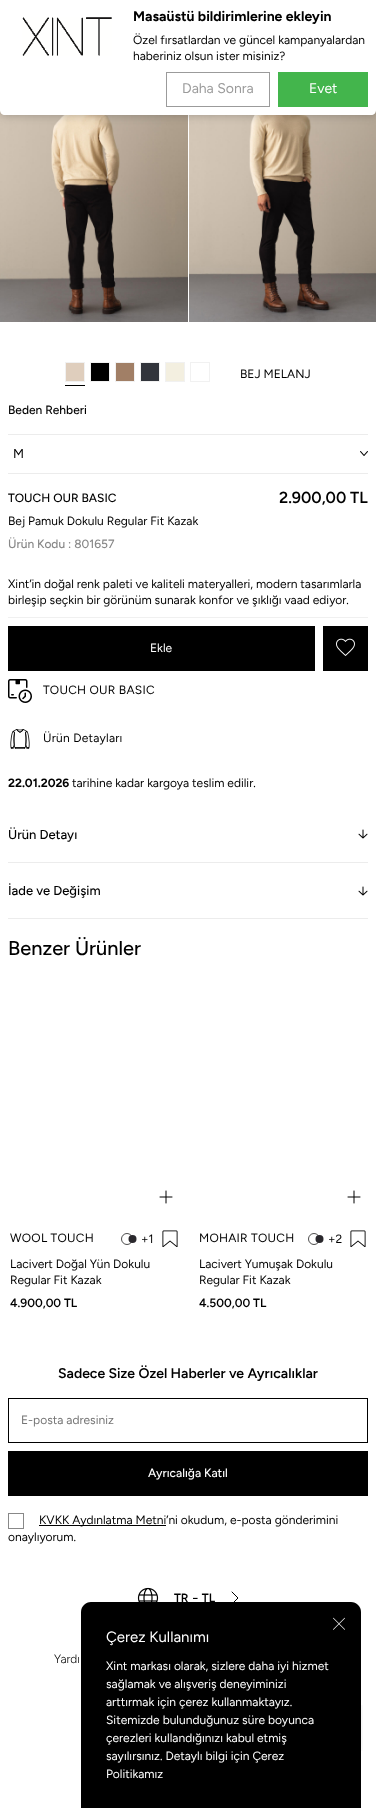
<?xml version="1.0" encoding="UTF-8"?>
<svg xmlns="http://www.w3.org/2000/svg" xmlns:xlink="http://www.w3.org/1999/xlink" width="376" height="1808">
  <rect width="100%" height="100%" fill="#ffffff" />
  <image x="0" y="110" width="188" height="212" xlink:href="image2.png" />
  <image x="189" y="110" width="187" height="212" xlink:href="image3.png" />
  <rect width="376" height="115" rx="5" fill="#282828" fill-opacity="0.3" filter="blur(5px)" />
  <path d="M 0 0 h 376 v 110 c 0 3 -2 5 -5 5 h -366 c -3 0 -5 -2 -5 -5 z" fill="#ffffff" />
  <image x="22" y="17" width="90" height="39" xlink:href="image1.png" />
  <rect x="166.5" y="72.5" width="103" height="34" fill="none" stroke="#9b9b9b" />
  <rect x="278" y="72" width="90" height="35" fill="#43b54c" />
  <rect x="65" y="385" width="20" height="1" fill="#000000" />
  <rect x="65.5" y="362.5" width="19" height="19" fill="#dfcebd" stroke="#f1f1f1" />
  <rect x="90.5" y="362.5" width="19" height="19" fill="#000000" stroke="#f1f1f1" />
  <rect x="115.5" y="362.5" width="19" height="19" fill="#a17f66" stroke="#f1f1f1" />
  <rect x="140.5" y="362.5" width="19" height="19" fill="#32353c" stroke="#f1f1f1" />
  <rect x="165.5" y="362.5" width="19" height="19" fill="#f3efe0" stroke="#f1f1f1" />
  <rect x="190.5" y="362.5" width="19" height="19" fill="none" stroke="#f1f1f1" />
  <image x="360" y="451" width="8" height="5" xlink:href="image4.png" />
  <rect x="8" y="434" width="360" height="1" fill="#ececec" />
  <rect x="8" y="473" width="360" height="1" fill="#ececec" />
  <rect x="8" y="617" width="360" height="1" fill="#f0f0f0" />
  <rect x="8" y="626" width="307" height="45" fill="#000000" />
  <rect x="323" y="626" width="45" height="45" fill="#000000" />
  <image x="336" y="638" width="19" height="18" xlink:href="image5.png" />
  <image x="8" y="679" width="24" height="24" xlink:href="image6.png" />
  <image x="10" y="729" width="20" height="20" xlink:href="image7.png" />
  <image x="358" y="829" width="10" height="10" xlink:href="image8.png" />
  <rect x="8" y="862" width="360" height="1" fill="#ececec" />
  <image x="358" y="886" width="10" height="10" xlink:href="image8.png" />
  <rect x="8" y="918" width="360" height="1" fill="#ececec" />
  <path d="M 160 1197 h 12 m -6 -6 v 12" fill="none" stroke="#000000" stroke-linecap="round" />
  <circle cx="127" cy="1239" r="5.5" fill="none" stroke="#000000" stroke-width="0.7" />
  <circle cx="132.5" cy="1239" r="4" fill="#2a282d" />
  <image x="162" y="1230" width="16" height="17" xlink:href="image9.png" />
  <path d="M 348 1197 h 12 m -6 -6 v 12" fill="none" stroke="#000000" stroke-linecap="round" />
  <circle cx="314" cy="1239" r="5.5" fill="none" stroke="#000000" stroke-width="0.7" />
  <circle cx="319.5" cy="1239" r="4" fill="#2a282d" />
  <image x="350" y="1230" width="16" height="17" xlink:href="image9.png" />
  <rect x="8.5" y="1398.5" width="359" height="44" fill="none" stroke="#000000" />
  <rect x="8" y="1451" width="360" height="45" fill="#000000" />
  <rect x="8.5" y="1513.5" width="15" height="15" fill="none" stroke="#888888" />
  <rect x="39" y="1525" width="127" height="1" fill="#000000" />
  <image x="137" y="1587" width="22" height="15" xlink:href="image10.png" />
  <path d="M 232 1592 l 6 6 l -6 6" fill="none" stroke="#000000" stroke-linecap="round" />
  <path d="M 91 1602 h 260 c 5.5 0 10 4.5 10 10 v 196 h -280 v -196 c 0 -5.5 4.5 -10 10 -10 z" fill="#000000" />
  <image x="333" y="1617" width="12" height="13" xlink:href="image11.png" />
  <image x="361" y="1705" width="2" height="46" xlink:href="image12.png" />
  <text x="133" y="21" style="font-family: Figtree; font-size: 14px; font-weight: bold; fill: #000000">Masaüstü bildirimlerine ekleyin</text>
  <text x="133" y="44" style="font-family: Figtree; font-size: 12px; fill: #000000">Özel fırsatlardan ve güncel kampanyalardan</text>
  <text x="133" y="60" style="font-family: Figtree; font-size: 12px; fill: #000000">haberiniz olsun ister misiniz?</text>
  <text x="182" y="93" style="font-family: Figtree; font-size: 14px; fill: #9b9b9b">Daha Sonra</text>
  <text x="309" y="93" style="font-family: Figtree; font-size: 14px; fill: #ffffff">Evet</text>
  <text x="240" y="378" style="font-family: Figtree; font-size: 12px; fill: #000000">BEJ MELANJ</text>
  <text x="8" y="414" style="font-family: Figtree; font-size: 12px; font-weight: 500; fill: #000000">Beden Rehberi</text>
  <text x="13" y="458" style="font-family: Figtree; font-size: 13px; fill: #000000">M</text>
  <text x="8" y="502" style="font-family: Figtree; font-size: 12px; font-weight: 500; fill: #000000">TOUCH OUR BASIC</text>
  <text x="8" y="525" style="font-family: Figtree; font-size: 12px; fill: #000000">Bej Pamuk Dokulu Regular Fit Kazak</text>
  <text x="8" y="548" style="font-family: Figtree; font-size: 12px; font-weight: 500; fill: #888888">Ürün Kodu : 801657</text>
  <text x="279" y="503" style="font-family: Figtree; font-size: 16px; font-weight: 600; fill: #000000">2.900,00 TL</text>
  <text x="8" y="588" style="font-family: Figtree; font-size: 12px; fill: #000000">Xint’in doğal renk paleti ve kaliteli materyalleri, modern tasarımlarla</text>
  <text x="8" y="604" style="font-family: Figtree; font-size: 12px; fill: #000000">birleşip seçkin bir görünüm sunarak konfor ve şıklığı vaad ediyor.</text>
  <text x="150" y="652" style="font-family: Figtree; font-size: 12px; fill: #ffffff">Ekle</text>
  <text x="43" y="694" style="font-family: Figtree; font-size: 12px; letter-spacing: 0.25px; fill: #000000">TOUCH OUR BASIC</text>
  <text x="43" y="742" style="font-family: Figtree; font-size: 12px; letter-spacing: 0.25px; fill: #000000">Ürün Detayları</text>
  <text x="8" y="787" style="font-family: Figtree; font-size: 12px; font-weight: bold; fill: #000000">22.01.2026</text>
  <text x="72" y="787" style="font-family: Figtree; font-size: 12px; fill: #000000">tarihine kadar kargoya teslim edilir.</text>
  <text x="8" y="839" style="font-family: Figtree; font-size: 13px; font-weight: 500; fill: #000000">Ürün Detayı</text>
  <text x="8" y="895" style="font-family: Figtree; font-size: 13px; font-weight: 500; fill: #000000">İade ve Değişim</text>
  <text x="8" y="955" style="font-family: Figtree; font-size: 20px; font-weight: 500; fill: #000000">Benzer Ürünler</text>
  <text x="10" y="1242" style="font-family: Figtree; font-size: 12px; letter-spacing: 0.25px; fill: #000000">WOOL TOUCH</text>
  <text x="141" y="1243" style="font-family: Figtree; font-size: 12px; fill: #000000">+1</text>
  <text x="10" y="1268" style="font-family: Figtree; font-size: 12px; fill: #000000">Lacivert Doğal Yün Dokulu</text>
  <text x="10" y="1284" style="font-family: Figtree; font-size: 12px; fill: #000000">Regular Fit Kazak</text>
  <text x="10" y="1307" style="font-family: Figtree; font-size: 12px; font-weight: 600; fill: #000000">4.900,00 TL</text>
  <text x="199" y="1242" style="font-family: Figtree; font-size: 12px; letter-spacing: 0.25px; fill: #000000">MOHAIR TOUCH</text>
  <text x="328" y="1243" style="font-family: Figtree; font-size: 12px; fill: #000000">+2</text>
  <text x="199" y="1268" style="font-family: Figtree; font-size: 12px; fill: #000000">Lacivert Yumuşak Dokulu</text>
  <text x="199" y="1284" style="font-family: Figtree; font-size: 12px; fill: #000000">Regular Fit Kazak</text>
  <text x="199" y="1307" style="font-family: Figtree; font-size: 12px; font-weight: 600; fill: #000000">4.500,00 TL</text>
  <text x="58" y="1378" style="font-family: Figtree; font-size: 14px; font-weight: 600; fill: #000000">Sadece Size Özel Haberler ve Ayrıcalıklar</text>
  <text x="21" y="1424" style="font-family: Figtree; font-size: 12px; fill: #757575">E-posta adresiniz</text>
  <text x="148" y="1477" style="font-family: Figtree; font-size: 12px; font-weight: 500; fill: #ffffff">Ayrıcalığa Katıl</text>
  <text x="39" y="1524" style="font-family: Figtree; font-size: 12px; fill: #000000">KVKK Aydınlatma Metni’ni okudum, e-posta gönderimini</text>
  <text x="8" y="1541" style="font-family: Figtree; font-size: 12px; fill: #000000">onaylıyorum.</text>
  <text x="174" y="1602" style="font-family: Figtree; font-size: 12px; font-weight: 600; fill: #000000">TR − TL</text>
  <text x="54" y="1663" style="font-family: Figtree; font-size: 12px; font-weight: 300; fill: #000000">Yardı</text>
  <text x="106" y="1642" style="font-family: Figtree; font-size: 15px; fill: #ffffff">Çerez Kullanımı</text>
  <text x="106" y="1670" style="font-family: Figtree; font-size: 12px; fill: #ffffff">Xint markası olarak, sizlere daha iyi hizmet</text>
  <text x="106" y="1688" style="font-family: Figtree; font-size: 12px; fill: #ffffff">sağlamak ve alışveriş deneyiminizi</text>
  <text x="106" y="1706" style="font-family: Figtree; font-size: 12px; fill: #ffffff">arttırmak için çerez kullanmaktayız.</text>
  <text x="106" y="1724" style="font-family: Figtree; font-size: 12px; fill: #ffffff">Sitemizde bulunduğunuz süre boyunca</text>
  <text x="106" y="1742" style="font-family: Figtree; font-size: 12px; fill: #ffffff">çerezleri kullandığınızı kabul etmiş</text>
  <text x="106" y="1760" style="font-family: Figtree; font-size: 12px; fill: #ffffff">sayılırsınız. Detaylı bilgi için Çerez</text>
  <text x="106" y="1778" style="font-family: Figtree; font-size: 12px; fill: #ffffff">Politikamız</text>
</svg>
